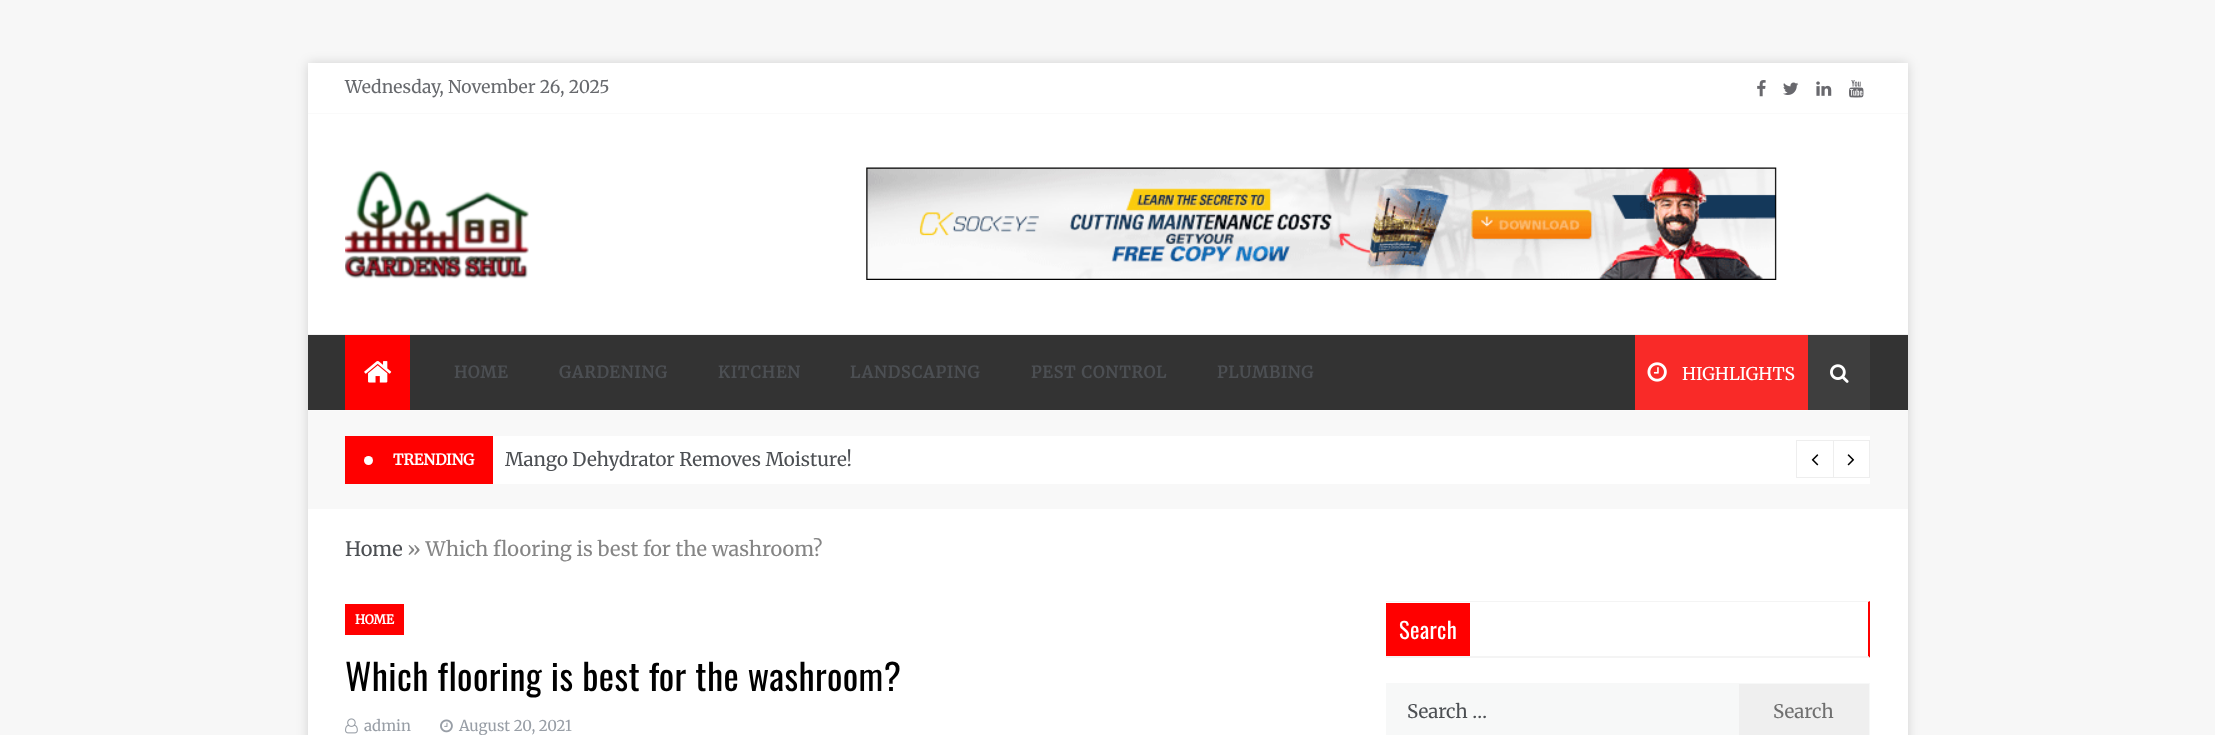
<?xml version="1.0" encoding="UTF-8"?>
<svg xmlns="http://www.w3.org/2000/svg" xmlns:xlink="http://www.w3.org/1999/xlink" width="2215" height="735">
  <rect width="100%" height="100%" fill="#f7f7f7" />
  <rect x="308" y="63" width="1600" height="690" fill="#000000" fill-opacity="0.15" filter="blur(6px)" />
  <rect x="308" y="63" width="1600" height="672" fill="#ffffff" />
  <rect x="308" y="113" width="1600" height="1" fill="#fafafa" />
  <image x="1757" y="80" width="9" height="17" xlink:href="image1.png" />
  <image x="1783" y="82" width="16" height="13" xlink:href="image2.png" />
  <image x="1816" y="81" width="16" height="15" xlink:href="image3.png" />
  <image x="1849" y="80" width="15" height="18" xlink:href="image4.png" />
  <rect x="308" y="410" width="1600" height="1" fill="#fafafa" />
  <rect x="308" y="334" width="1600" height="1" fill="#f2f2f2" />
  <image x="345" y="170" width="184" height="109" xlink:href="image5.png" />
  <image x="866" y="167" width="911" height="113" xlink:href="image6.png" />
  <rect x="308" y="335" width="1600" height="75" fill="#333333" />
  <rect x="345" y="335" width="65" height="75" fill="#ff0000" />
  <image x="364" y="361" width="28" height="22" xlink:href="image7.png" />
  <rect x="1635" y="335" width="173" height="75" fill="#f92a28" />
  <image x="1647" y="362" width="20" height="20" xlink:href="image8.png" />
  <rect x="1808" y="335" width="62" height="75" fill="#3e3e3e" />
  <image x="1830" y="364" width="19" height="19" xlink:href="image9.png" />
  <rect x="308" y="411" width="1600" height="98" fill="#f8f8f8" />
  <rect x="493" y="436" width="1377" height="48" fill="#ffffff" />
  <rect x="345" y="436" width="148" height="48" fill="#ff0000" />
  <circle cx="368.5" cy="460.5" r="4.5" fill="#ffffff" />
  <rect x="1796.5" y="440.5" width="37" height="37" fill="none" stroke="#eeeeee" />
  <image x="1811" y="454" width="8" height="12" xlink:href="image10.png" />
  <rect x="1833.5" y="440.5" width="36" height="37" fill="none" stroke="#eeeeee" />
  <image x="1847" y="454" width="8" height="12" xlink:href="image11.png" />
  <rect x="345" y="604" width="59" height="31" fill="#ff0000" />
  <image x="345" y="718" width="13" height="16" xlink:href="image12.png" />
  <image x="440" y="719" width="13" height="14" xlink:href="image13.png" />
  <path d="M 1386 601 h 484 l -2 1 h -482 z" fill="#f4f4f4" />
  <path d="M 1870 601 v 57 l -2 -2 v -54 z" fill="#ff0000" />
  <path d="M 1870 658 h -484 v -2 h 482 z" fill="#f4f4f4" />
  <rect x="1386" y="603" width="84" height="53" fill="#ff0000" />
  <rect x="1386" y="683" width="352" height="52" fill="#f7f8f8" />
  <rect x="1738.5" y="683.5" width="131" height="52" fill="#efefef" stroke="#f7f8f8" />
  <text x="345" y="93" style="font-family: Merriweather; font-size: 17.5px; font-weight: 300; fill: #67696d">Wednesday, November 26, 2025</text>
  <text x="454" y="378" style="font-family: Merriweather; font-size: 16.25px; font-weight: bold; letter-spacing: 1px; fill: #4c4f53">HOME</text>
  <text x="559" y="378" style="font-family: Merriweather; font-size: 16.25px; font-weight: bold; letter-spacing: 1px; fill: #4c4f53">GARDENING</text>
  <text x="718" y="378" style="font-family: Merriweather; font-size: 16.25px; font-weight: bold; letter-spacing: 1px; fill: #4c4f53">KITCHEN</text>
  <text x="850" y="378" style="font-family: Merriweather; font-size: 16.25px; font-weight: bold; letter-spacing: 1px; fill: #4c4f53">LANDSCAPING</text>
  <text x="1031" y="378" style="font-family: Merriweather; font-size: 16.25px; font-weight: bold; letter-spacing: 1px; fill: #4c4f53">PEST CONTROL</text>
  <text x="1217" y="378" style="font-family: Merriweather; font-size: 16.25px; font-weight: bold; letter-spacing: 1px; fill: #4c4f53">PLUMBING</text>
  <text x="1682" y="380" style="font-family: Merriweather; font-size: 17.5px; font-weight: 300; fill: #ffffff">HIGHLIGHTS</text>
  <text x="393" y="465" style="font-family: Merriweather; font-size: 15px; font-weight: bold; fill: #ffffff">TRENDING</text>
  <text x="505" y="466" style="font-family: Merriweather; font-size: 18.75px; font-weight: 300; fill: #4c4f53">Mango Dehydrator Removes Moisture!</text>
  <text x="345" y="556" style="font-family: Merriweather; font-size: 20px; font-weight: 300; fill: #4c4f53">Home</text>
  <text x="407" y="556" style="font-family: Merriweather; font-size: 20px; font-weight: 300; fill: #858585">» Which flooring is best for the washroom?</text>
  <text x="355" y="624" style="font-family: Merriweather; font-size: 12.5px; font-weight: bold; fill: #ffffff">HOME</text>
  <text x="345" y="691" style="font-family: Oswald; font-size: 36.25px; letter-spacing: 0.4px; fill: #000000">Which flooring is best for the washroom?</text>
  <text x="364" y="731" style="font-family: Merriweather; font-size: 15px; font-weight: 300; fill: #989ea6">admin</text>
  <text x="459" y="731" style="font-family: Merriweather; font-size: 15px; font-weight: 300; fill: #989ea6">August 20, 2021</text>
  <text x="1399" y="639" style="font-family: Oswald; font-size: 22.5px; letter-spacing: 0.4px; fill: #ffffff">Search</text>
  <text x="1407" y="718" style="font-family: Merriweather; font-size: 18.75px; font-weight: 300; fill: #4c4f53">Search …</text>
  <text x="1773" y="718" style="font-family: Merriweather; font-size: 18.75px; font-weight: 300; fill: #6f6f6f">Search</text>
</svg>
